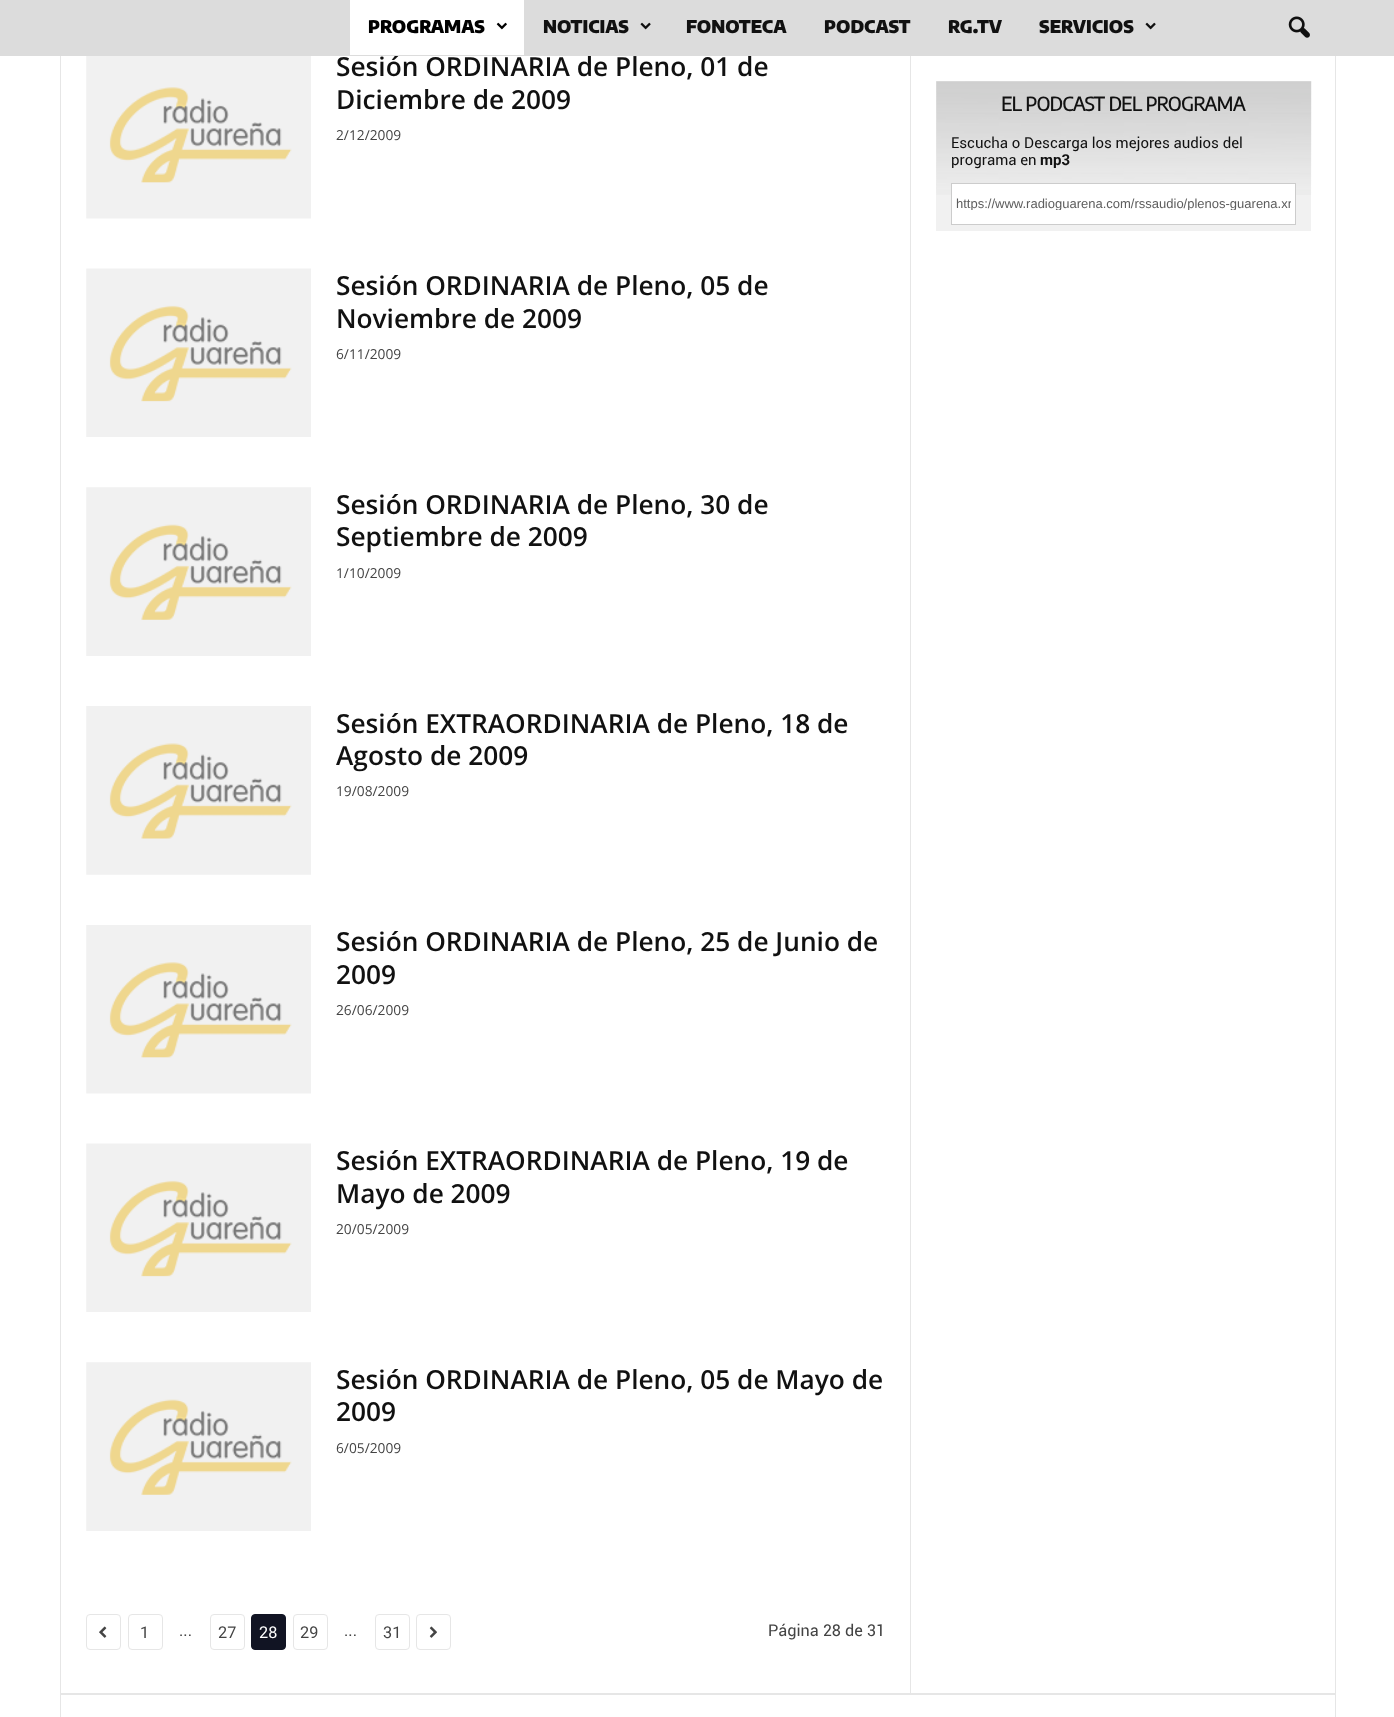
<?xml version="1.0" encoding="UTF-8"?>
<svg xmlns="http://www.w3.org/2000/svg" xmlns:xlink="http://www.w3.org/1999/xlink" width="1394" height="1717">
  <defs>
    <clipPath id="clip1"><rect x="956" y="196" width="335" height="14" /></clipPath>
  </defs>
  <rect width="100%" height="100%" fill="#ffffff" />
  <rect x="60" y="56" width="1" height="1637" fill="#e6e6e6" />
  <image x="86" y="56" width="225" height="163" xlink:href="image4.png" />
  <image x="86" y="268" width="225" height="169" xlink:href="image5.png" />
  <image x="86" y="487" width="225" height="169" xlink:href="image6.png" />
  <image x="86" y="706" width="225" height="169" xlink:href="image7.png" />
  <image x="86" y="925" width="225" height="169" xlink:href="image8.png" />
  <image x="86" y="1143" width="225" height="169" xlink:href="image5.png" />
  <image x="86" y="1362" width="225" height="169" xlink:href="image6.png" />
  <rect x="86.5" y="1614.5" width="34" height="35" rx="3.5" fill="none" stroke="#e6e6e6" />
  <image x="99" y="1626" width="8" height="12" xlink:href="image9.png" />
  <rect x="128.5" y="1614.5" width="34" height="35" rx="3.5" fill="none" stroke="#e6e6e6" />
  <rect x="210.5" y="1614.5" width="34" height="35" rx="3.5" fill="none" stroke="#e6e6e6" />
  <rect x="251.5" y="1614.5" width="34" height="35" rx="3.5" fill="#111423" stroke="#111423" />
  <rect x="293.5" y="1614.5" width="34" height="35" rx="3.5" fill="none" stroke="#e6e6e6" />
  <rect x="375.5" y="1614.5" width="34" height="35" rx="3.5" fill="none" stroke="#e6e6e6" />
  <rect x="416.5" y="1614.5" width="34" height="35" rx="3.5" fill="none" stroke="#e6e6e6" />
  <image x="429" y="1626" width="8" height="12" xlink:href="image10.png" />
  <rect x="910" y="56" width="1" height="1637" fill="#e6e6e6" />
  <rect x="936" y="81" width="375" height="150" fill="#f1f1f1" />
  <image x="936" y="81" width="376" height="114" xlink:href="image11.png" />
  <rect x="951.5" y="183.5" width="344" height="41" fill="#ffffff" stroke="#cccccc" />
  <rect x="1335" y="56" width="1" height="1637" fill="#e6e6e6" />
  <rect x="60" y="1693" width="1276" height="2" fill="#e6e6e6" />
  <rect x="60" y="1695" width="1" height="22" fill="#e6e6e6" />
  <rect x="1335" y="1695" width="1" height="22" fill="#e6e6e6" />
  <text x="336" y="76" style="font-family: Open Sans; font-size: 26.25px; font-weight: 600; fill: #111111">Sesión ORDINARIA de Pleno, 01 de</text>
  <rect width="1394" height="56" fill="#dcdcdc" />
  <rect x="350" width="174" height="55" fill="#ffffff" />
  <image x="496" y="22" width="11" height="8" xlink:href="image1.png" />
  <text x="368" y="33" style="font-family: Encode Sans; font-size: 17.5px; font-weight: 900; fill: #000000">PROGRAMAS</text>
  <image x="1288" y="16" width="22" height="22" xlink:href="image3.png" />
  <image x="1145" y="22" width="11" height="8" xlink:href="image2.png" />
  <text x="1039" y="33" style="font-family: Encode Sans; font-size: 17.5px; font-weight: 900; fill: #111111">SERVICIOS</text>
  <text x="948" y="33" style="font-family: Encode Sans; font-size: 17.5px; font-weight: 900; fill: #111111">RG.TV</text>
  <text x="824" y="33" style="font-family: Encode Sans; font-size: 17.5px; font-weight: 900; fill: #111111">PODCAST</text>
  <text x="686" y="33" style="font-family: Encode Sans; font-size: 17.5px; font-weight: 900; fill: #111111">FONOTECA</text>
  <image x="640" y="22" width="11" height="8" xlink:href="image2.png" />
  <text x="543" y="33" style="font-family: Encode Sans; font-size: 17.5px; font-weight: 900; fill: #111111">NOTICIAS</text>
  <text x="336" y="109" style="font-family: Open Sans; font-size: 26.25px; font-weight: 600; fill: #111111">Diciembre de 2009</text>
  <text x="336" y="140" style="font-family: Open Sans; font-size: 13.75px; fill: #444444">2/12/2009</text>
  <text x="336" y="295" style="font-family: Open Sans; font-size: 26.25px; font-weight: 600; fill: #111111">Sesión ORDINARIA de Pleno, 05 de</text>
  <text x="336" y="328" style="font-family: Open Sans; font-size: 26.25px; font-weight: 600; fill: #111111">Noviembre de 2009</text>
  <text x="336" y="359" style="font-family: Open Sans; font-size: 13.75px; fill: #444444">6/11/2009</text>
  <text x="336" y="514" style="font-family: Open Sans; font-size: 26.25px; font-weight: 600; fill: #111111">Sesión ORDINARIA de Pleno, 30 de</text>
  <text x="336" y="546" style="font-family: Open Sans; font-size: 26.25px; font-weight: 600; fill: #111111">Septiembre de 2009</text>
  <text x="336" y="578" style="font-family: Open Sans; font-size: 13.75px; fill: #444444">1/10/2009</text>
  <text x="336" y="733" style="font-family: Open Sans; font-size: 26.25px; font-weight: 600; fill: #111111">Sesión EXTRAORDINARIA de Pleno, 18 de</text>
  <text x="336" y="765" style="font-family: Open Sans; font-size: 26.25px; font-weight: 600; fill: #111111">Agosto de 2009</text>
  <text x="336" y="796" style="font-family: Open Sans; font-size: 13.75px; fill: #444444">19/08/2009</text>
  <text x="336" y="951" style="font-family: Open Sans; font-size: 26.25px; font-weight: 600; fill: #111111">Sesión ORDINARIA de Pleno, 25 de Junio de</text>
  <text x="336" y="984" style="font-family: Open Sans; font-size: 26.25px; font-weight: 600; fill: #111111">2009</text>
  <text x="336" y="1015" style="font-family: Open Sans; font-size: 13.75px; fill: #444444">26/06/2009</text>
  <text x="336" y="1170" style="font-family: Open Sans; font-size: 26.25px; font-weight: 600; fill: #111111">Sesión EXTRAORDINARIA de Pleno, 19 de</text>
  <text x="336" y="1203" style="font-family: Open Sans; font-size: 26.25px; font-weight: 600; fill: #111111">Mayo de 2009</text>
  <text x="336" y="1234" style="font-family: Open Sans; font-size: 13.75px; fill: #444444">20/05/2009</text>
  <text x="336" y="1389" style="font-family: Open Sans; font-size: 26.25px; font-weight: 600; fill: #111111">Sesión ORDINARIA de Pleno, 05 de Mayo de</text>
  <text x="336" y="1421" style="font-family: Open Sans; font-size: 26.25px; font-weight: 600; fill: #111111">2009</text>
  <text x="336" y="1453" style="font-family: Open Sans; font-size: 13.75px; fill: #444444">6/05/2009</text>
  <text x="140" y="1638" style="font-family: Roboto; font-size: 16.25px; fill: #444444">1</text>
  <text x="179" y="1636" style="font-family: 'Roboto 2'; font-size: 16.25px; fill: #444444">...</text>
  <text x="218" y="1638" style="font-family: Roboto; font-size: 16.25px; fill: #444444">27</text>
  <text x="259" y="1638" style="font-family: Roboto; font-size: 16.25px; fill: #ffffff">28</text>
  <text x="300" y="1638" style="font-family: Roboto; font-size: 16.25px; fill: #444444">29</text>
  <text x="344" y="1636" style="font-family: 'Roboto 2'; font-size: 16.25px; fill: #444444">...</text>
  <text x="383" y="1638" style="font-family: Roboto; font-size: 16.25px; fill: #444444">31</text>
  <text x="768" y="1636" style="font-family: 'Roboto 2'; font-size: 16.25px; fill: #444444">Página 28 de 31</text>
  <text x="1001" y="111" style="font-family: Encode Sans; font-size: 18.75px; font-weight: bold; letter-spacing: -0.4px; fill: #111111">EL PODCAST DEL PROGRAMA</text>
  <text x="951" y="148" style="font-family: 'Roboto 2'; font-size: 15px; fill: #111111">Escucha o Descarga los mejores audios del</text>
  <text x="951" y="165" style="font-family: 'Roboto 2'; font-size: 15px; fill: #111111">programa en</text>
  <text x="1040" y="165" style="font-family: Roboto; font-size: 15px; font-weight: bold; fill: #111111">mp3</text>
  <g clip-path="url(#clip1)">
    <text x="956" y="208" style="font-family: Liberation Sans; font-size: 13px; fill: #5d5d5d">https://www.radioguarena.com/rssaudio/plenos-guarena.xm</text>
  </g>
</svg>
